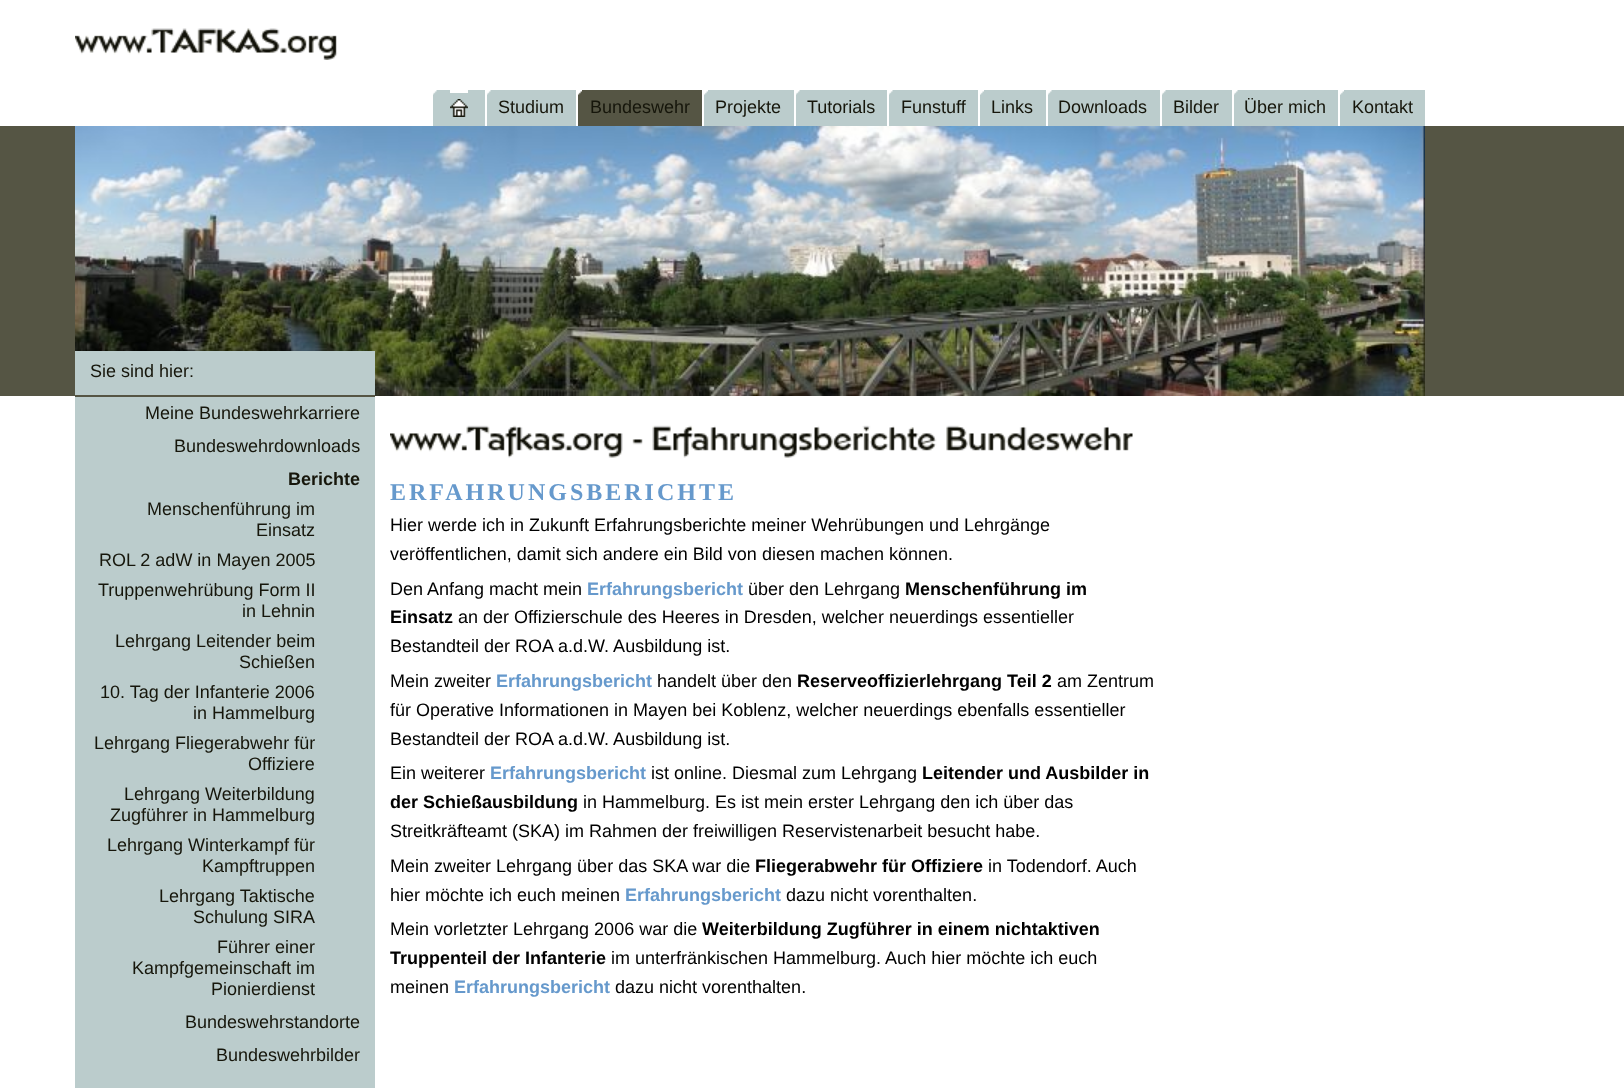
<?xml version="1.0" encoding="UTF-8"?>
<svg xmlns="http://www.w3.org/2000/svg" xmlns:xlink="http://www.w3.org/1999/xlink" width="1624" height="1088">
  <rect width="100%" height="100%" fill="#ffffff" />
  <image x="75" y="28" width="263" height="32" xlink:href="image1.png" />
  <rect x="433" y="90" width="17" height="36" fill="#bbcccc" />
  <image x="433" y="90" width="4" height="5" xlink:href="image2.png" />
  <rect x="468" y="90" width="17" height="36" fill="#bbcccc" />
  <rect x="487" y="90" width="89" height="36" fill="#bbcccc" />
  <image x="487" y="90" width="4" height="5" xlink:href="image2.png" />
  <rect x="578" y="90" width="124" height="36" fill="#555544" />
  <image x="578" y="90" width="4" height="5" xlink:href="image3.png" />
  <rect x="704" y="90" width="90" height="36" fill="#bbcccc" />
  <image x="704" y="90" width="4" height="5" xlink:href="image4.png" />
  <rect x="796" y="90" width="91" height="36" fill="#bbcccc" />
  <image x="796" y="90" width="4" height="5" xlink:href="image5.png" />
  <rect x="889" y="90" width="89" height="36" fill="#bbcccc" />
  <image x="889" y="90" width="4" height="5" xlink:href="image5.png" />
  <rect x="980" y="90" width="66" height="36" fill="#bbcccc" />
  <image x="980" y="90" width="4" height="5" xlink:href="image6.png" />
  <rect x="1048" y="90" width="112" height="36" fill="#bbcccc" />
  <image x="1048" y="90" width="4" height="5" xlink:href="image2.png" />
  <rect x="1162" y="90" width="70" height="36" fill="#bbcccc" />
  <image x="1162" y="90" width="4" height="5" xlink:href="image2.png" />
  <rect x="1234" y="90" width="104" height="36" fill="#bbcccc" />
  <image x="1234" y="90" width="4" height="5" xlink:href="image2.png" />
  <rect x="1340" y="90" width="85" height="36" fill="#bbcccc" />
  <image x="1340" y="90" width="4" height="5" xlink:href="image4.png" />
  <rect x="450" y="93" width="18" height="33" fill="#bbcccc" />
  <image x="450" y="99" width="18" height="18" xlink:href="image7.png" />
  <rect y="126" width="1624" height="270" fill="#555544" />
  <image x="75" y="126" width="1350" height="270" xlink:href="image8.png" />
  <rect x="75" y="351" width="300" height="737" fill="#bbcccc" />
  <rect x="75" y="395" width="300" height="2" fill="#555544" />
  <image x="390" y="425" width="743" height="33" xlink:href="image9.png" />
  <text x="1244" y="113" style="font-family: Liberation Sans; font-size: 18px; fill: #16160b">Über mich</text>
  <text x="498" y="113" style="font-family: Liberation Sans; font-size: 18px; fill: #16160b">Studium</text>
  <text x="590" y="113" style="font-family: Liberation Sans; font-size: 18px; fill: #16160b">Bundeswehr</text>
  <text x="715" y="113" style="font-family: Liberation Sans; font-size: 18px; fill: #16160b">Projekte</text>
  <text x="807" y="113" style="font-family: Liberation Sans; font-size: 18px; fill: #16160b">Tutorials</text>
  <text x="901" y="113" style="font-family: Liberation Sans; font-size: 18px; fill: #16160b">Funstuff</text>
  <text x="991" y="113" style="font-family: Liberation Sans; font-size: 18px; fill: #16160b">Links</text>
  <text x="1058" y="113" style="font-family: Liberation Sans; font-size: 18px; fill: #16160b">Downloads</text>
  <text x="1173" y="113" style="font-family: Liberation Sans; font-size: 18px; fill: #16160b">Bilder</text>
  <text x="1352" y="113" style="font-family: Liberation Sans; font-size: 18px; fill: #16160b">Kontakt</text>
  <text x="90" y="377" style="font-family: Liberation Sans; font-size: 18px; fill: #16160b">Sie sind hier:</text>
  <text x="145" y="419" style="font-family: Liberation Sans; font-size: 18px; fill: #16160b">Meine Bundeswehrkarriere</text>
  <text x="174" y="452" style="font-family: Liberation Sans; font-size: 18px; fill: #16160b">Bundeswehrdownloads</text>
  <text x="288" y="485" style="font-family: Liberation Sans; font-size: 18px; font-weight: bold; fill: #16160b">Berichte</text>
  <text x="147" y="515" style="font-family: Liberation Sans; font-size: 18px; fill: #16160b">Menschenführung im</text>
  <text x="256" y="536" style="font-family: Liberation Sans; font-size: 18px; fill: #16160b">Einsatz</text>
  <text x="99" y="566" style="font-family: Liberation Sans; font-size: 18px; fill: #16160b">ROL 2 adW in Mayen 2005</text>
  <text x="98" y="596" style="font-family: Liberation Sans; font-size: 18px; fill: #16160b">Truppenwehrübung Form II</text>
  <text x="242" y="617" style="font-family: Liberation Sans; font-size: 18px; fill: #16160b">in Lehnin</text>
  <text x="115" y="647" style="font-family: Liberation Sans; font-size: 18px; fill: #16160b">Lehrgang Leitender beim</text>
  <text x="239" y="668" style="font-family: Liberation Sans; font-size: 18px; fill: #16160b">Schießen</text>
  <text x="100" y="698" style="font-family: Liberation Sans; font-size: 18px; fill: #16160b">10. Tag der Infanterie 2006</text>
  <text x="193" y="719" style="font-family: Liberation Sans; font-size: 18px; fill: #16160b">in Hammelburg</text>
  <text x="94" y="749" style="font-family: Liberation Sans; font-size: 18px; fill: #16160b">Lehrgang Fliegerabwehr für</text>
  <text x="248" y="770" style="font-family: Liberation Sans; font-size: 18px; fill: #16160b">Offiziere</text>
  <text x="124" y="800" style="font-family: Liberation Sans; font-size: 18px; fill: #16160b">Lehrgang Weiterbildung</text>
  <text x="110" y="821" style="font-family: Liberation Sans; font-size: 18px; fill: #16160b">Zugführer in Hammelburg</text>
  <text x="107" y="851" style="font-family: Liberation Sans; font-size: 18px; fill: #16160b">Lehrgang Winterkampf für</text>
  <text x="202" y="872" style="font-family: Liberation Sans; font-size: 18px; fill: #16160b">Kampftruppen</text>
  <text x="159" y="902" style="font-family: Liberation Sans; font-size: 18px; fill: #16160b">Lehrgang Taktische</text>
  <text x="193" y="923" style="font-family: Liberation Sans; font-size: 18px; fill: #16160b">Schulung SIRA</text>
  <text x="217" y="953" style="font-family: Liberation Sans; font-size: 18px; fill: #16160b">Führer einer</text>
  <text x="132" y="974" style="font-family: Liberation Sans; font-size: 18px; fill: #16160b">Kampfgemeinschaft im</text>
  <text x="211" y="995" style="font-family: Liberation Sans; font-size: 18px; fill: #16160b">Pionierdienst</text>
  <text x="185" y="1028" style="font-family: Liberation Sans; font-size: 18px; fill: #16160b">Bundeswehrstandorte</text>
  <text x="216" y="1061" style="font-family: Liberation Sans; font-size: 18px; fill: #16160b">Bundeswehrbilder</text>
  <text x="390" y="500" style="font-family: Liberation Serif; font-size: 24px; font-weight: bold; letter-spacing: 3px; fill: #6699cc">ERFAHRUNGSBERICHTE</text>
  <text x="390" y="531" style="font-family: Liberation Sans; font-size: 18px; fill: #000000">Hier werde ich in Zukunft Erfahrungsberichte meiner Wehrübungen und Lehrgänge</text>
  <text x="390" y="560" style="font-family: Liberation Sans; font-size: 18px; fill: #000000">veröffentlichen, damit sich andere ein Bild von diesen machen können.</text>
  <text x="390" y="595" style="font-family: Liberation Sans; font-size: 18px; fill: #000000">Den Anfang macht mein</text>
  <text x="587" y="595" style="font-family: Liberation Sans; font-size: 18px; font-weight: bold; fill: #6699cc">Erfahrungsbericht</text>
  <text x="748" y="595" style="font-family: Liberation Sans; font-size: 18px; fill: #000000">über den Lehrgang</text>
  <text x="905" y="595" style="font-family: Liberation Sans; font-size: 18px; font-weight: bold; fill: #000000">Menschenführung im</text>
  <text x="390" y="623" style="font-family: Liberation Sans; font-size: 18px; font-weight: bold; fill: #000000">Einsatz</text>
  <text x="458" y="623" style="font-family: Liberation Sans; font-size: 18px; fill: #000000">an der Offizierschule des Heeres in Dresden, welcher neuerdings essentieller</text>
  <text x="390" y="652" style="font-family: Liberation Sans; font-size: 18px; fill: #000000">Bestandteil der ROA a.d.W. Ausbildung ist.</text>
  <text x="390" y="687" style="font-family: Liberation Sans; font-size: 18px; fill: #000000">Mein zweiter</text>
  <text x="496" y="687" style="font-family: Liberation Sans; font-size: 18px; font-weight: bold; fill: #6699cc">Erfahrungsbericht</text>
  <text x="657" y="687" style="font-family: Liberation Sans; font-size: 18px; fill: #000000">handelt über den</text>
  <text x="797" y="687" style="font-family: Liberation Sans; font-size: 18px; font-weight: bold; fill: #000000">Reserveoffizierlehrgang Teil 2</text>
  <text x="1057" y="687" style="font-family: Liberation Sans; font-size: 18px; fill: #000000">am Zentrum</text>
  <text x="390" y="716" style="font-family: Liberation Sans; font-size: 18px; fill: #000000">für Operative Informationen in Mayen bei Koblenz, welcher neuerdings ebenfalls essentieller</text>
  <text x="390" y="745" style="font-family: Liberation Sans; font-size: 18px; fill: #000000">Bestandteil der ROA a.d.W. Ausbildung ist.</text>
  <text x="390" y="779" style="font-family: Liberation Sans; font-size: 18px; fill: #000000">Ein weiterer</text>
  <text x="490" y="779" style="font-family: Liberation Sans; font-size: 18px; font-weight: bold; fill: #6699cc">Erfahrungsbericht</text>
  <text x="651" y="779" style="font-family: Liberation Sans; font-size: 18px; fill: #000000">ist online. Diesmal zum Lehrgang</text>
  <text x="922" y="779" style="font-family: Liberation Sans; font-size: 18px; font-weight: bold; fill: #000000">Leitender und Ausbilder in</text>
  <text x="390" y="808" style="font-family: Liberation Sans; font-size: 18px; font-weight: bold; fill: #000000">der Schießausbildung</text>
  <text x="583" y="808" style="font-family: Liberation Sans; font-size: 18px; fill: #000000">in Hammelburg. Es ist mein erster Lehrgang den ich über das</text>
  <text x="390" y="837" style="font-family: Liberation Sans; font-size: 18px; fill: #000000">Streitkräfteamt (SKA) im Rahmen der freiwilligen Reservistenarbeit besucht habe.</text>
  <text x="390" y="872" style="font-family: Liberation Sans; font-size: 18px; fill: #000000">Mein zweiter Lehrgang über das SKA war die</text>
  <text x="755" y="872" style="font-family: Liberation Sans; font-size: 18px; font-weight: bold; fill: #000000">Fliegerabwehr für Offiziere</text>
  <text x="988" y="872" style="font-family: Liberation Sans; font-size: 18px; fill: #000000">in Todendorf. Auch</text>
  <text x="390" y="901" style="font-family: Liberation Sans; font-size: 18px; fill: #000000">hier möchte ich euch meinen</text>
  <text x="625" y="901" style="font-family: Liberation Sans; font-size: 18px; font-weight: bold; fill: #6699cc">Erfahrungsbericht</text>
  <text x="786" y="901" style="font-family: Liberation Sans; font-size: 18px; fill: #000000">dazu nicht vorenthalten.</text>
  <text x="390" y="935" style="font-family: Liberation Sans; font-size: 18px; fill: #000000">Mein vorletzter Lehrgang 2006 war die</text>
  <text x="702" y="935" style="font-family: Liberation Sans; font-size: 18px; font-weight: bold; fill: #000000">Weiterbildung Zugführer in einem nichtaktiven</text>
  <text x="390" y="964" style="font-family: Liberation Sans; font-size: 18px; font-weight: bold; fill: #000000">Truppenteil der Infanterie</text>
  <text x="611" y="964" style="font-family: Liberation Sans; font-size: 18px; fill: #000000">im unterfränkischen Hammelburg. Auch hier möchte ich euch</text>
  <text x="390" y="993" style="font-family: Liberation Sans; font-size: 18px; fill: #000000">meinen</text>
  <text x="454" y="993" style="font-family: Liberation Sans; font-size: 18px; font-weight: bold; fill: #6699cc">Erfahrungsbericht</text>
  <text x="615" y="993" style="font-family: Liberation Sans; font-size: 18px; fill: #000000">dazu nicht vorenthalten.</text>
</svg>
